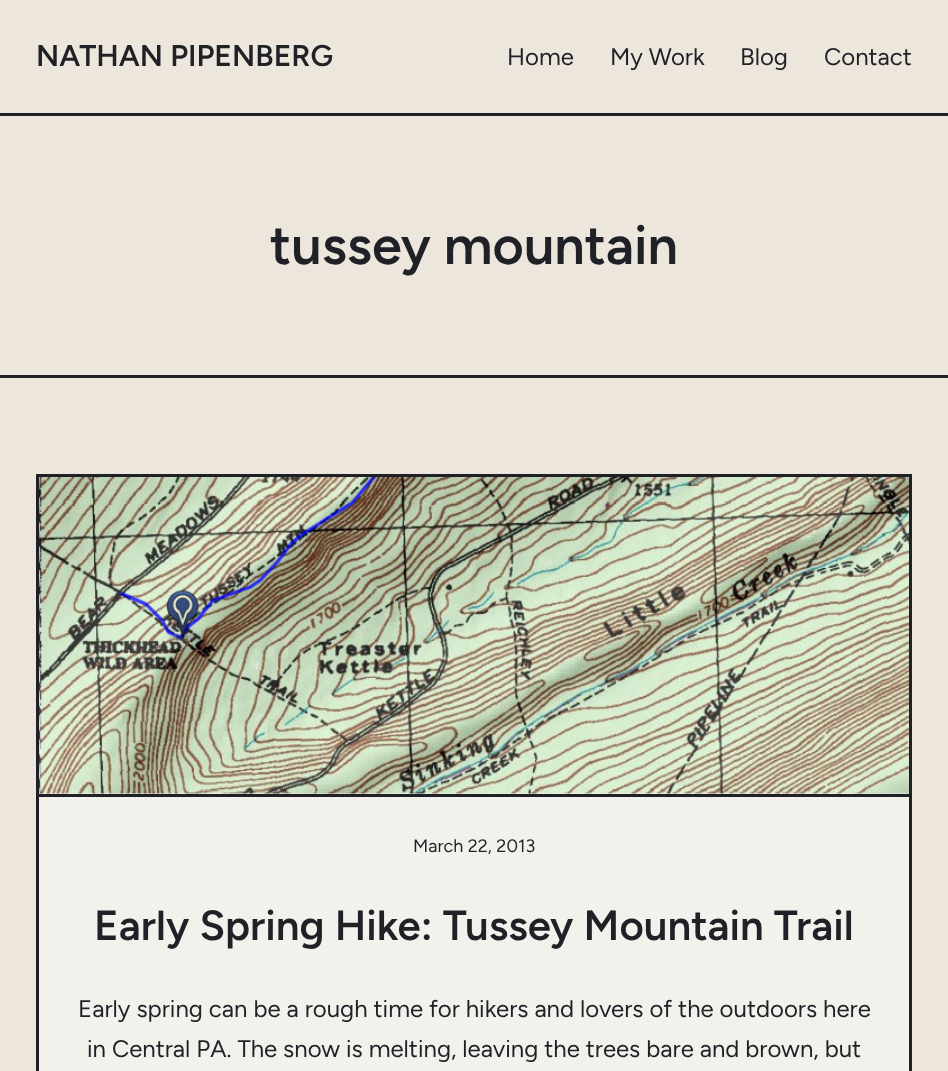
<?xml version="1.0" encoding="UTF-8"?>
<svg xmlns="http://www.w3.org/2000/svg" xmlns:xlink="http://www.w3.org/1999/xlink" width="948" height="1071">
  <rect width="100%" height="100%" fill="#ece6dc" />
  <rect y="113" width="948" height="3" fill="#1f2127" />
  <rect y="375" width="948" height="3" fill="#1f2127" />
  <rect x="39" y="793" width="870" height="278" fill="#f3f1ec" />
  <rect x="37.5" y="475.5" width="873" height="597" fill="none" stroke="#1f2127" stroke-width="3" />
  <image x="39" y="477" width="870" height="317" xlink:href="image1.png" />
  <rect x="39" y="794" width="870" height="3" fill="#1f2127" />
  <text x="36" y="66" style="font-family: Figtree; font-size: 30px; font-weight: 600; fill: #1f2127">NATHAN PIPENBERG</text>
  <text x="507" y="65" style="font-family: Figtree; font-size: 24px; fill: #1f2127">Home</text>
  <text x="610" y="65" style="font-family: Figtree; font-size: 24px; fill: #1f2127">My Work</text>
  <text x="740" y="65" style="font-family: Figtree; font-size: 24px; fill: #1f2127">Blog</text>
  <text x="824" y="65" style="font-family: Figtree; font-size: 24px; fill: #1f2127">Contact</text>
  <text x="270" y="264" style="font-family: Figtree; font-size: 54px; font-weight: 600; fill: #1f2127">tussey mountain</text>
  <text x="413" y="852" style="font-family: Figtree; font-size: 18px; fill: #1f2127">March 22, 2013</text>
  <text x="94" y="940" style="font-family: Figtree; font-size: 42px; font-weight: 600; fill: #1f2127">Early Spring Hike: Tussey Mountain Trail</text>
  <text x="78" y="1017" style="font-family: Figtree; font-size: 24px; fill: #1f2127">Early spring can be a rough time for hikers and lovers of the outdoors here</text>
  <text x="87" y="1057" style="font-family: Figtree; font-size: 24px; fill: #1f2127">in Central PA. The snow is melting, leaving the trees bare and brown, but</text>
</svg>
